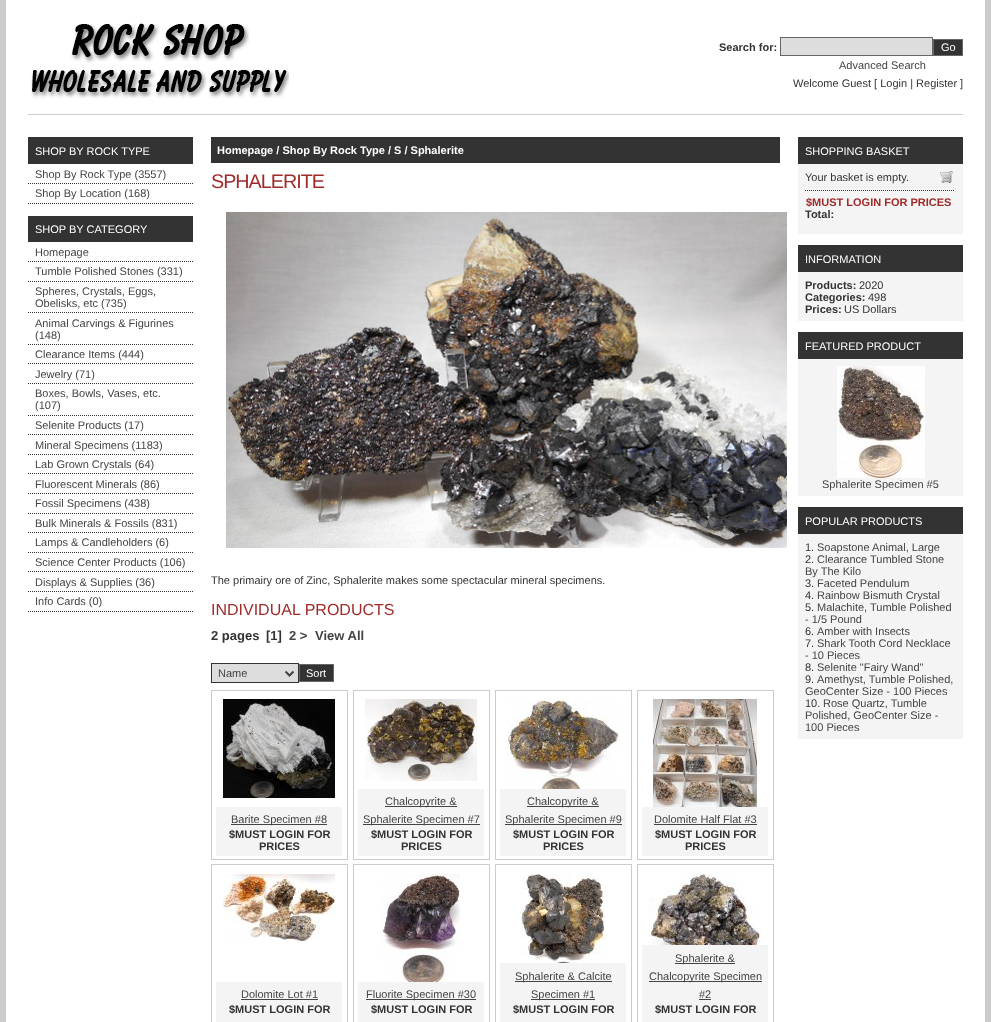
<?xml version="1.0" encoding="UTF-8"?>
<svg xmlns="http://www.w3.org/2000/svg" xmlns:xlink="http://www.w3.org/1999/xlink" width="991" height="1022">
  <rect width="100%" height="100%" fill="#cccccc" />
  <rect x="6" width="979" height="1022" fill="#ffffff" />
  <image x="31" y="23" width="258" height="76" xlink:href="image1.png" />
  <rect x="28" y="114" width="935" height="1" fill="#cccccc" />
  <rect x="780.5" y="37.5" width="152" height="18" fill="#dddddd" stroke="#666666" />
  <rect x="933.5" y="39.5" width="29" height="16" fill="#333333" stroke="#666666" />
  <rect x="28" y="137" width="165" height="27" fill="#333333" />
  <path d="M 28 183.5 h 165" fill="none" stroke="#333333" stroke-dasharray="1 1" />
  <path d="M 28 203.5 h 165" fill="none" stroke="#333333" stroke-dasharray="1 1" />
  <rect x="28" y="216" width="165" height="26" fill="#333333" />
  <path d="M 28 261.5 h 165" fill="none" stroke="#333333" stroke-dasharray="1 1" />
  <path d="M 28 281.5 h 165" fill="none" stroke="#333333" stroke-dasharray="1 1" />
  <path d="M 28 312.5 h 165" fill="none" stroke="#333333" stroke-dasharray="1 1" />
  <path d="M 28 344.5 h 165" fill="none" stroke="#333333" stroke-dasharray="1 1" />
  <path d="M 28 363.5 h 165" fill="none" stroke="#333333" stroke-dasharray="1 1" />
  <path d="M 28 383.5 h 165" fill="none" stroke="#333333" stroke-dasharray="1 1" />
  <path d="M 28 415.5 h 165" fill="none" stroke="#333333" stroke-dasharray="1 1" />
  <path d="M 28 434.5 h 165" fill="none" stroke="#333333" stroke-dasharray="1 1" />
  <path d="M 28 454.5 h 165" fill="none" stroke="#333333" stroke-dasharray="1 1" />
  <path d="M 28 473.5 h 165" fill="none" stroke="#333333" stroke-dasharray="1 1" />
  <path d="M 28 493.5 h 165" fill="none" stroke="#333333" stroke-dasharray="1 1" />
  <path d="M 28 513.5 h 165" fill="none" stroke="#333333" stroke-dasharray="1 1" />
  <path d="M 28 532.5 h 165" fill="none" stroke="#333333" stroke-dasharray="1 1" />
  <path d="M 28 552.5 h 165" fill="none" stroke="#333333" stroke-dasharray="1 1" />
  <path d="M 28 571.5 h 165" fill="none" stroke="#333333" stroke-dasharray="1 1" />
  <path d="M 28 591.5 h 165" fill="none" stroke="#333333" stroke-dasharray="1 1" />
  <path d="M 28 611.5 h 165" fill="none" stroke="#333333" stroke-dasharray="1 1" />
  <rect x="211" y="137" width="569" height="26" fill="#333333" />
  <image x="226" y="212" width="561" height="336" xlink:href="image2.png" />
  <rect x="211.5" y="663.5" width="87" height="19" fill="#dddddd" stroke="#333333" />
  <path d="M 285.5 671.5 l 4 4 l 4 -4" fill="none" stroke="#444444" stroke-width="2" />
  <rect x="299.5" y="664.5" width="34" height="17" fill="#333333" stroke="#666666" />
  <rect x="211.5" y="690.5" width="136" height="169" fill="none" stroke="#cccccc" />
  <image x="223" y="699" width="112" height="99" xlink:href="image3.png" />
  <rect x="216" y="807" width="126" height="49" fill="#f4f4f4" />
  <rect x="231" y="824" width="96" height="1" fill="#444444" />
  <rect x="353.5" y="690.5" width="136" height="169" fill="none" stroke="#cccccc" />
  <image x="365" y="699" width="112" height="82" xlink:href="image4.png" />
  <rect x="358" y="789" width="126" height="67" fill="#f4f4f4" />
  <rect x="385" y="806" width="72" height="1" fill="#444444" />
  <rect x="363" y="824" width="117" height="1" fill="#444444" />
  <rect x="495.5" y="690.5" width="136" height="169" fill="none" stroke="#cccccc" />
  <image x="507" y="699" width="112" height="90" xlink:href="image5.png" />
  <rect x="500" y="789" width="126" height="67" fill="#f4f4f4" />
  <rect x="527" y="806" width="72" height="1" fill="#444444" />
  <rect x="505" y="824" width="117" height="1" fill="#444444" />
  <rect x="637.5" y="690.5" width="136" height="169" fill="none" stroke="#cccccc" />
  <image x="653" y="699" width="104" height="108" xlink:href="image6.png" />
  <rect x="642" y="807" width="126" height="49" fill="#f4f4f4" />
  <rect x="654" y="824" width="103" height="1" fill="#444444" />
  <rect x="211.5" y="864.5" width="136" height="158" fill="none" stroke="#cccccc" />
  <image x="223" y="874" width="112" height="67" xlink:href="image7.png" />
  <rect x="216" y="982" width="126" height="40" fill="#f4f4f4" />
  <rect x="241" y="999" width="77" height="1" fill="#444444" />
  <rect x="353.5" y="864.5" width="136" height="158" fill="none" stroke="#cccccc" />
  <image x="382" y="874" width="78" height="108" xlink:href="image8.png" />
  <rect x="358" y="982" width="126" height="40" fill="#f4f4f4" />
  <rect x="366" y="999" width="110" height="1" fill="#444444" />
  <rect x="495.5" y="864.5" width="136" height="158" fill="none" stroke="#cccccc" />
  <image x="520" y="874" width="86" height="89" xlink:href="image9.png" />
  <rect x="500" y="963" width="126" height="59" fill="#f4f4f4" />
  <rect x="515" y="981" width="97" height="1" fill="#444444" />
  <rect x="531" y="999" width="64" height="1" fill="#444444" />
  <rect x="637.5" y="864.5" width="136" height="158" fill="none" stroke="#cccccc" />
  <image x="649" y="874" width="112" height="71" xlink:href="image10.png" />
  <rect x="642" y="945" width="126" height="77" fill="#f4f4f4" />
  <rect x="675" y="963" width="60" height="1" fill="#444444" />
  <rect x="649" y="981" width="113" height="1" fill="#444444" />
  <rect x="699" y="999" width="12" height="1" fill="#444444" />
  <rect x="798" y="137" width="165" height="27" fill="#333333" />
  <rect x="798" y="164" width="165" height="70" fill="#f4f4f4" />
  <image x="940" y="171" width="13" height="12" xlink:href="image11.png" />
  <path d="M 805 190.5 h 149" fill="none" stroke="#333333" stroke-dasharray="1 1" />
  <rect x="798" y="245" width="165" height="27" fill="#333333" />
  <rect x="798" y="272" width="165" height="49" fill="#f4f4f4" />
  <rect x="798" y="332" width="165" height="27" fill="#333333" />
  <rect x="798" y="359" width="165" height="137" fill="#f4f4f4" />
  <image x="837" y="366" width="88" height="112" xlink:href="image12.png" />
  <rect x="798" y="507" width="165" height="27" fill="#333333" />
  <rect x="798" y="534" width="165" height="205" fill="#f4f4f4" />
  <text x="719" y="51" style="font-family: Liberation Sans; font-size: 11px; font-weight: bold; fill: #333333">Search for:</text>
  <text x="941" y="51" style="font-family: Liberation Sans; font-size: 11px; fill: #ffffff">Go</text>
  <text x="839" y="69" style="font-family: Liberation Sans; font-size: 11px; fill: #444444">Advanced Search</text>
  <text x="793" y="87" style="font-family: Liberation Sans; font-size: 11px; fill: #333333">Welcome Guest [ Login | Register ]</text>
  <text x="35" y="155" style="font-family: Liberation Sans; font-size: 11px; fill: #ffffff">SHOP BY ROCK TYPE</text>
  <text x="35" y="178" style="font-family: Liberation Sans; font-size: 11px; fill: #444444">Shop By Rock Type (3557)</text>
  <text x="35" y="197" style="font-family: Liberation Sans; font-size: 11px; fill: #444444">Shop By Location (168)</text>
  <text x="35" y="233" style="font-family: Liberation Sans; font-size: 11px; fill: #ffffff">SHOP BY CATEGORY</text>
  <text x="35" y="256" style="font-family: Liberation Sans; font-size: 11px; fill: #444444">Homepage</text>
  <text x="35" y="275" style="font-family: Liberation Sans; font-size: 11px; fill: #444444">Tumble Polished Stones (331)</text>
  <text x="35" y="295" style="font-family: Liberation Sans; font-size: 11px; fill: #444444">Spheres, Crystals, Eggs,</text>
  <text x="35" y="307" style="font-family: Liberation Sans; font-size: 11px; fill: #444444">Obelisks, etc (735)</text>
  <text x="35" y="327" style="font-family: Liberation Sans; font-size: 11px; fill: #444444">Animal Carvings &amp; Figurines</text>
  <text x="35" y="339" style="font-family: Liberation Sans; font-size: 11px; fill: #444444">(148)</text>
  <text x="35" y="358" style="font-family: Liberation Sans; font-size: 11px; fill: #444444">Clearance Items (444)</text>
  <text x="35" y="378" style="font-family: Liberation Sans; font-size: 11px; fill: #444444">Jewelry (71)</text>
  <text x="35" y="397" style="font-family: Liberation Sans; font-size: 11px; fill: #444444">Boxes, Bowls, Vases, etc.</text>
  <text x="35" y="409" style="font-family: Liberation Sans; font-size: 11px; fill: #444444">(107)</text>
  <text x="35" y="429" style="font-family: Liberation Sans; font-size: 11px; fill: #444444">Selenite Products (17)</text>
  <text x="35" y="449" style="font-family: Liberation Sans; font-size: 11px; fill: #444444">Mineral Specimens (1183)</text>
  <text x="35" y="468" style="font-family: Liberation Sans; font-size: 11px; fill: #444444">Lab Grown Crystals (64)</text>
  <text x="35" y="488" style="font-family: Liberation Sans; font-size: 11px; fill: #444444">Fluorescent Minerals (86)</text>
  <text x="35" y="507" style="font-family: Liberation Sans; font-size: 11px; fill: #444444">Fossil Specimens (438)</text>
  <text x="35" y="527" style="font-family: Liberation Sans; font-size: 11px; fill: #444444">Bulk Minerals &amp; Fossils (831)</text>
  <text x="35" y="546" style="font-family: Liberation Sans; font-size: 11px; fill: #444444">Lamps &amp; Candleholders (6)</text>
  <text x="35" y="566" style="font-family: Liberation Sans; font-size: 11px; fill: #444444">Science Center Products (106)</text>
  <text x="35" y="586" style="font-family: Liberation Sans; font-size: 11px; fill: #444444">Displays &amp; Supplies (36)</text>
  <text x="35" y="605" style="font-family: Liberation Sans; font-size: 11px; fill: #444444">Info Cards (0)</text>
  <text x="217" y="154" style="font-family: Liberation Sans; font-size: 11px; font-weight: bold; fill: #ffffff">Homepage / Shop By Rock Type / S / Sphalerite</text>
  <text x="211" y="188" style="font-family: Liberation Sans; font-size: 19.75px; letter-spacing: -1px; fill: #a02b2b">SPHALERITE</text>
  <text x="211" y="584" style="font-family: Liberation Sans; font-size: 11px; fill: #333333">The primairy ore of Zinc, Sphalerite makes some spectacular mineral specimens.</text>
  <text x="211" y="615" style="font-family: Liberation Sans; font-size: 16px; fill: #a02b2b">INDIVIDUAL PRODUCTS</text>
  <text x="211" y="640" style="font-family: Liberation Sans; font-size: 13px; font-weight: bold; fill: #333333">2 pages</text>
  <text x="266" y="640" style="font-family: Liberation Sans; font-size: 13px; font-weight: bold; fill: #333333">[1]</text>
  <text x="289" y="640" style="font-family: Liberation Sans; font-size: 13px; font-weight: bold; fill: #444444">2 &gt;</text>
  <text x="315" y="640" style="font-family: Liberation Sans; font-size: 13px; font-weight: bold; fill: #444444">View All</text>
  <text x="218" y="677" style="font-family: Liberation Sans; font-size: 11px; fill: #444444">Name</text>
  <text x="306" y="677" style="font-family: Liberation Sans; font-size: 11px; fill: #ffffff">Sort</text>
  <text x="231" y="823" style="font-family: Liberation Sans; font-size: 11px; fill: #444444">Barite Specimen #8</text>
  <text x="229" y="838" style="font-family: Liberation Sans; font-size: 11px; font-weight: bold; fill: #333333">$MUST LOGIN FOR</text>
  <text x="259" y="850" style="font-family: Liberation Sans; font-size: 11px; font-weight: bold; fill: #333333">PRICES</text>
  <text x="385" y="805" style="font-family: Liberation Sans; font-size: 11px; fill: #444444">Chalcopyrite &amp;</text>
  <text x="363" y="823" style="font-family: Liberation Sans; font-size: 11px; fill: #444444">Sphalerite Specimen #7</text>
  <text x="371" y="838" style="font-family: Liberation Sans; font-size: 11px; font-weight: bold; fill: #333333">$MUST LOGIN FOR</text>
  <text x="401" y="850" style="font-family: Liberation Sans; font-size: 11px; font-weight: bold; fill: #333333">PRICES</text>
  <text x="527" y="805" style="font-family: Liberation Sans; font-size: 11px; fill: #444444">Chalcopyrite &amp;</text>
  <text x="505" y="823" style="font-family: Liberation Sans; font-size: 11px; fill: #444444">Sphalerite Specimen #9</text>
  <text x="513" y="838" style="font-family: Liberation Sans; font-size: 11px; font-weight: bold; fill: #333333">$MUST LOGIN FOR</text>
  <text x="543" y="850" style="font-family: Liberation Sans; font-size: 11px; font-weight: bold; fill: #333333">PRICES</text>
  <text x="654" y="823" style="font-family: Liberation Sans; font-size: 11px; fill: #444444">Dolomite Half Flat #3</text>
  <text x="655" y="838" style="font-family: Liberation Sans; font-size: 11px; font-weight: bold; fill: #333333">$MUST LOGIN FOR</text>
  <text x="685" y="850" style="font-family: Liberation Sans; font-size: 11px; font-weight: bold; fill: #333333">PRICES</text>
  <text x="241" y="998" style="font-family: Liberation Sans; font-size: 11px; fill: #444444">Dolomite Lot #1</text>
  <text x="229" y="1013" style="font-family: Liberation Sans; font-size: 11px; font-weight: bold; fill: #333333">$MUST LOGIN FOR</text>
  <text x="366" y="998" style="font-family: Liberation Sans; font-size: 11px; fill: #444444">Fluorite Specimen #30</text>
  <text x="371" y="1013" style="font-family: Liberation Sans; font-size: 11px; font-weight: bold; fill: #333333">$MUST LOGIN FOR</text>
  <text x="515" y="980" style="font-family: Liberation Sans; font-size: 11px; fill: #444444">Sphalerite &amp; Calcite</text>
  <text x="531" y="998" style="font-family: Liberation Sans; font-size: 11px; fill: #444444">Specimen #1</text>
  <text x="513" y="1013" style="font-family: Liberation Sans; font-size: 11px; font-weight: bold; fill: #333333">$MUST LOGIN FOR</text>
  <text x="675" y="962" style="font-family: Liberation Sans; font-size: 11px; fill: #444444">Sphalerite &amp;</text>
  <text x="649" y="980" style="font-family: Liberation Sans; font-size: 11px; fill: #444444">Chalcopyrite Specimen</text>
  <text x="699" y="998" style="font-family: Liberation Sans; font-size: 11px; fill: #444444">#2</text>
  <text x="655" y="1013" style="font-family: Liberation Sans; font-size: 11px; font-weight: bold; fill: #333333">$MUST LOGIN FOR</text>
  <text x="805" y="155" style="font-family: Liberation Sans; font-size: 11px; fill: #ffffff">SHOPPING BASKET</text>
  <text x="805" y="181" style="font-family: Liberation Sans; font-size: 11px; fill: #333333">Your basket is empty.</text>
  <text x="806" y="206" style="font-family: Liberation Sans; font-size: 11px; font-weight: bold; fill: #a02b2b">$MUST LOGIN FOR PRICES</text>
  <text x="805" y="218" style="font-family: Liberation Sans; font-size: 11px; font-weight: bold; fill: #333333">Total:</text>
  <text x="805" y="263" style="font-family: Liberation Sans; font-size: 11px; fill: #ffffff">INFORMATION</text>
  <text x="805" y="289" style="font-family: Liberation Sans; font-size: 11px; font-weight: bold; fill: #333333">Products:</text>
  <text x="859" y="289" style="font-family: Liberation Sans; font-size: 11px; fill: #333333">2020</text>
  <text x="805" y="301" style="font-family: Liberation Sans; font-size: 11px; font-weight: bold; fill: #333333">Categories:</text>
  <text x="868" y="301" style="font-family: Liberation Sans; font-size: 11px; fill: #333333">498</text>
  <text x="805" y="313" style="font-family: Liberation Sans; font-size: 11px; font-weight: bold; fill: #333333">Prices:</text>
  <text x="844" y="313" style="font-family: Liberation Sans; font-size: 11px; fill: #333333">US Dollars</text>
  <text x="805" y="350" style="font-family: Liberation Sans; font-size: 11px; fill: #ffffff">FEATURED PRODUCT</text>
  <text x="822" y="488" style="font-family: Liberation Sans; font-size: 11px; fill: #444444">Sphalerite Specimen #5</text>
  <text x="805" y="525" style="font-family: Liberation Sans; font-size: 11px; fill: #ffffff">POPULAR PRODUCTS</text>
  <text x="805" y="551" style="font-family: Liberation Sans; font-size: 11px; fill: #333333">1.</text>
  <text x="817" y="551" style="font-family: Liberation Sans; font-size: 11px; fill: #444444">Soapstone Animal, Large</text>
  <text x="805" y="563" style="font-family: Liberation Sans; font-size: 11px; fill: #333333">2.</text>
  <text x="817" y="563" style="font-family: Liberation Sans; font-size: 11px; fill: #444444">Clearance Tumbled Stone</text>
  <text x="805" y="575" style="font-family: Liberation Sans; font-size: 11px; fill: #444444">By The Kilo</text>
  <text x="805" y="587" style="font-family: Liberation Sans; font-size: 11px; fill: #333333">3.</text>
  <text x="817" y="587" style="font-family: Liberation Sans; font-size: 11px; fill: #444444">Faceted Pendulum</text>
  <text x="805" y="599" style="font-family: Liberation Sans; font-size: 11px; fill: #333333">4.</text>
  <text x="817" y="599" style="font-family: Liberation Sans; font-size: 11px; fill: #444444">Rainbow Bismuth Crystal</text>
  <text x="805" y="611" style="font-family: Liberation Sans; font-size: 11px; fill: #333333">5.</text>
  <text x="817" y="611" style="font-family: Liberation Sans; font-size: 11px; fill: #444444">Malachite, Tumble Polished</text>
  <text x="805" y="623" style="font-family: Liberation Sans; font-size: 11px; fill: #444444">- 1/5 Pound</text>
  <text x="805" y="635" style="font-family: Liberation Sans; font-size: 11px; fill: #333333">6.</text>
  <text x="817" y="635" style="font-family: Liberation Sans; font-size: 11px; fill: #444444">Amber with Insects</text>
  <text x="805" y="647" style="font-family: Liberation Sans; font-size: 11px; fill: #333333">7.</text>
  <text x="817" y="647" style="font-family: Liberation Sans; font-size: 11px; fill: #444444">Shark Tooth Cord Necklace</text>
  <text x="805" y="659" style="font-family: Liberation Sans; font-size: 11px; fill: #444444">- 10 Pieces</text>
  <text x="805" y="671" style="font-family: Liberation Sans; font-size: 11px; fill: #333333">8.</text>
  <text x="817" y="671" style="font-family: Liberation Sans; font-size: 11px; fill: #444444">Selenite "Fairy Wand"</text>
  <text x="805" y="683" style="font-family: Liberation Sans; font-size: 11px; fill: #333333">9.</text>
  <text x="817" y="683" style="font-family: Liberation Sans; font-size: 11px; fill: #444444">Amethyst, Tumble Polished,</text>
  <text x="805" y="695" style="font-family: Liberation Sans; font-size: 11px; fill: #444444">GeoCenter Size - 100 Pieces</text>
  <text x="805" y="707" style="font-family: Liberation Sans; font-size: 11px; fill: #333333">10.</text>
  <text x="823" y="707" style="font-family: Liberation Sans; font-size: 11px; fill: #444444">Rose Quartz, Tumble</text>
  <text x="805" y="719" style="font-family: Liberation Sans; font-size: 11px; fill: #444444">Polished, GeoCenter Size -</text>
  <text x="805" y="731" style="font-family: Liberation Sans; font-size: 11px; fill: #444444">100 Pieces</text>
</svg>
